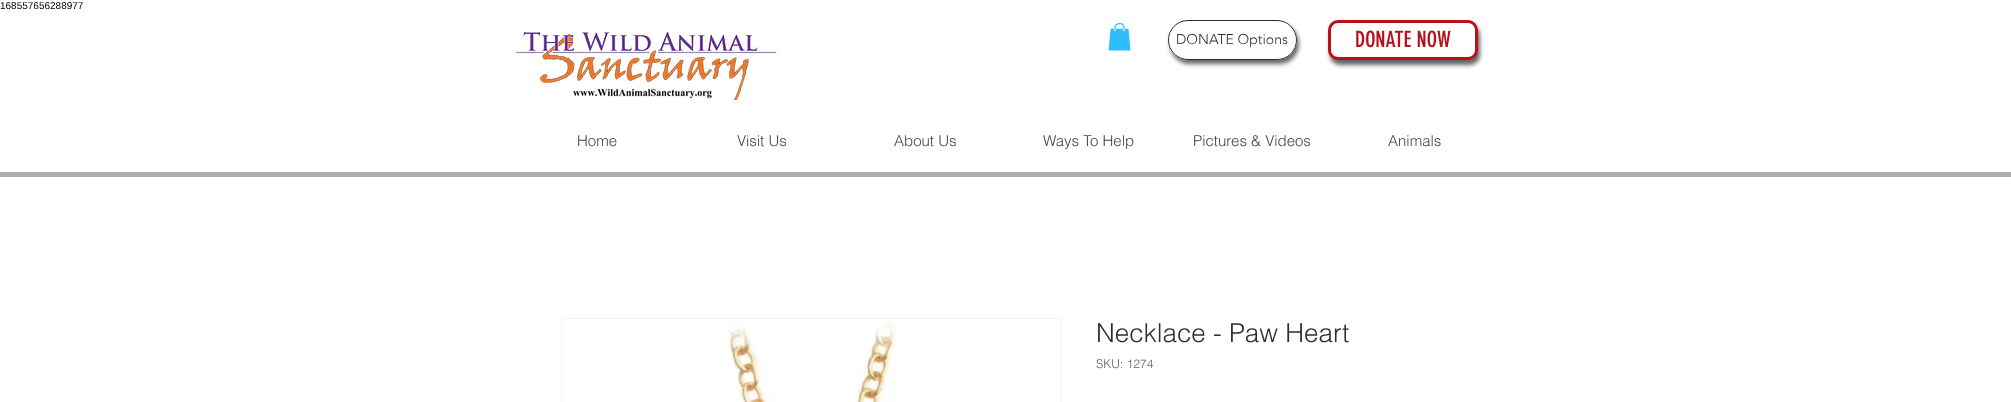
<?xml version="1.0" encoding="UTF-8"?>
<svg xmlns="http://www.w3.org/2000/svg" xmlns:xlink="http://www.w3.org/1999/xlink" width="2011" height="402">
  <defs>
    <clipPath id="clip1"><path d="M 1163 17 h 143 v 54 h -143 z m 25 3 h 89 c 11 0 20 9 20 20 c 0 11 -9 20 -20 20 h -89 c -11 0 -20 -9 -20 -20 c 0 -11 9 -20 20 -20 z" clip-rule="evenodd" /></clipPath>
  </defs>
  <rect width="100%" height="100%" fill="#ffffff" />
  <image x="516" y="32" width="261" height="68" xlink:href="image1.png" />
  <image x="1108" y="23" width="23" height="28" xlink:href="image2.png" />
  <g clip-path="url(#clip1)">
    <rect x="1170" y="24" width="129" height="40" rx="20" fill="#000000" fill-opacity="0.6" filter="blur(2px)" />
  </g>
  <rect x="1168.5" y="20.5" width="128" height="39" rx="19.5" fill="none" stroke="#2f2e2e" />
  <rect x="1330" y="25" width="150" height="40" rx="10" fill="#000000" fill-opacity="0.6" filter="blur(2px)" />
  <rect x="1329.5" y="21.5" width="147" height="37" rx="8.5" fill="#ffffff" stroke="#b7121b" stroke-width="3" />
  <rect y="172" width="2011" height="5" fill="#adadac" />
  <rect x="561.5" y="318.5" width="499" height="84" fill="none" stroke="#f2f2f2" />
  <image x="728" y="323" width="170" height="79" xlink:href="image3.png" />
  <text x="0" y="9" style="font-family: Liberation Sans; font-size: 10px; fill: #000000">168557656288977</text>
  <text x="1176" y="44" style="font-family: 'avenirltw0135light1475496'; font-size: 14px; font-weight: 300; fill: #2f2e2e">DONATE Options</text>
  <text x="1355" y="47" style="font-family: 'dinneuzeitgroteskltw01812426'; font-size: 22px; fill: #b7121b">DONATE NOW</text>
  <text x="577" y="146" style="font-family: helvetica; font-size: 15px; font-weight: 300; fill: #444444">Home</text>
  <text x="737" y="146" style="font-family: helvetica; font-size: 15px; font-weight: 300; fill: #444444">Visit Us</text>
  <text x="894" y="146" style="font-family: helvetica; font-size: 15px; font-weight: 300; fill: #444444">About Us</text>
  <text x="1043" y="146" style="font-family: helvetica; font-size: 15px; font-weight: 300; fill: #444444">Ways To Help</text>
  <text x="1193" y="146" style="font-family: helvetica; font-size: 15px; font-weight: 300; fill: #444444">Pictures &amp; Videos</text>
  <text x="1388" y="146" style="font-family: helvetica; font-size: 15px; font-weight: 300; fill: #444444">Animals</text>
  <text x="1096" y="342" style="font-family: helvetica; font-size: 26px; font-weight: 300; fill: #2f2e2e">Necklace - Paw Heart</text>
  <text x="1096" y="368" style="font-family: helvetica; font-size: 12px; font-weight: 300; fill: #605e5e">SKU: 1274</text>
</svg>
